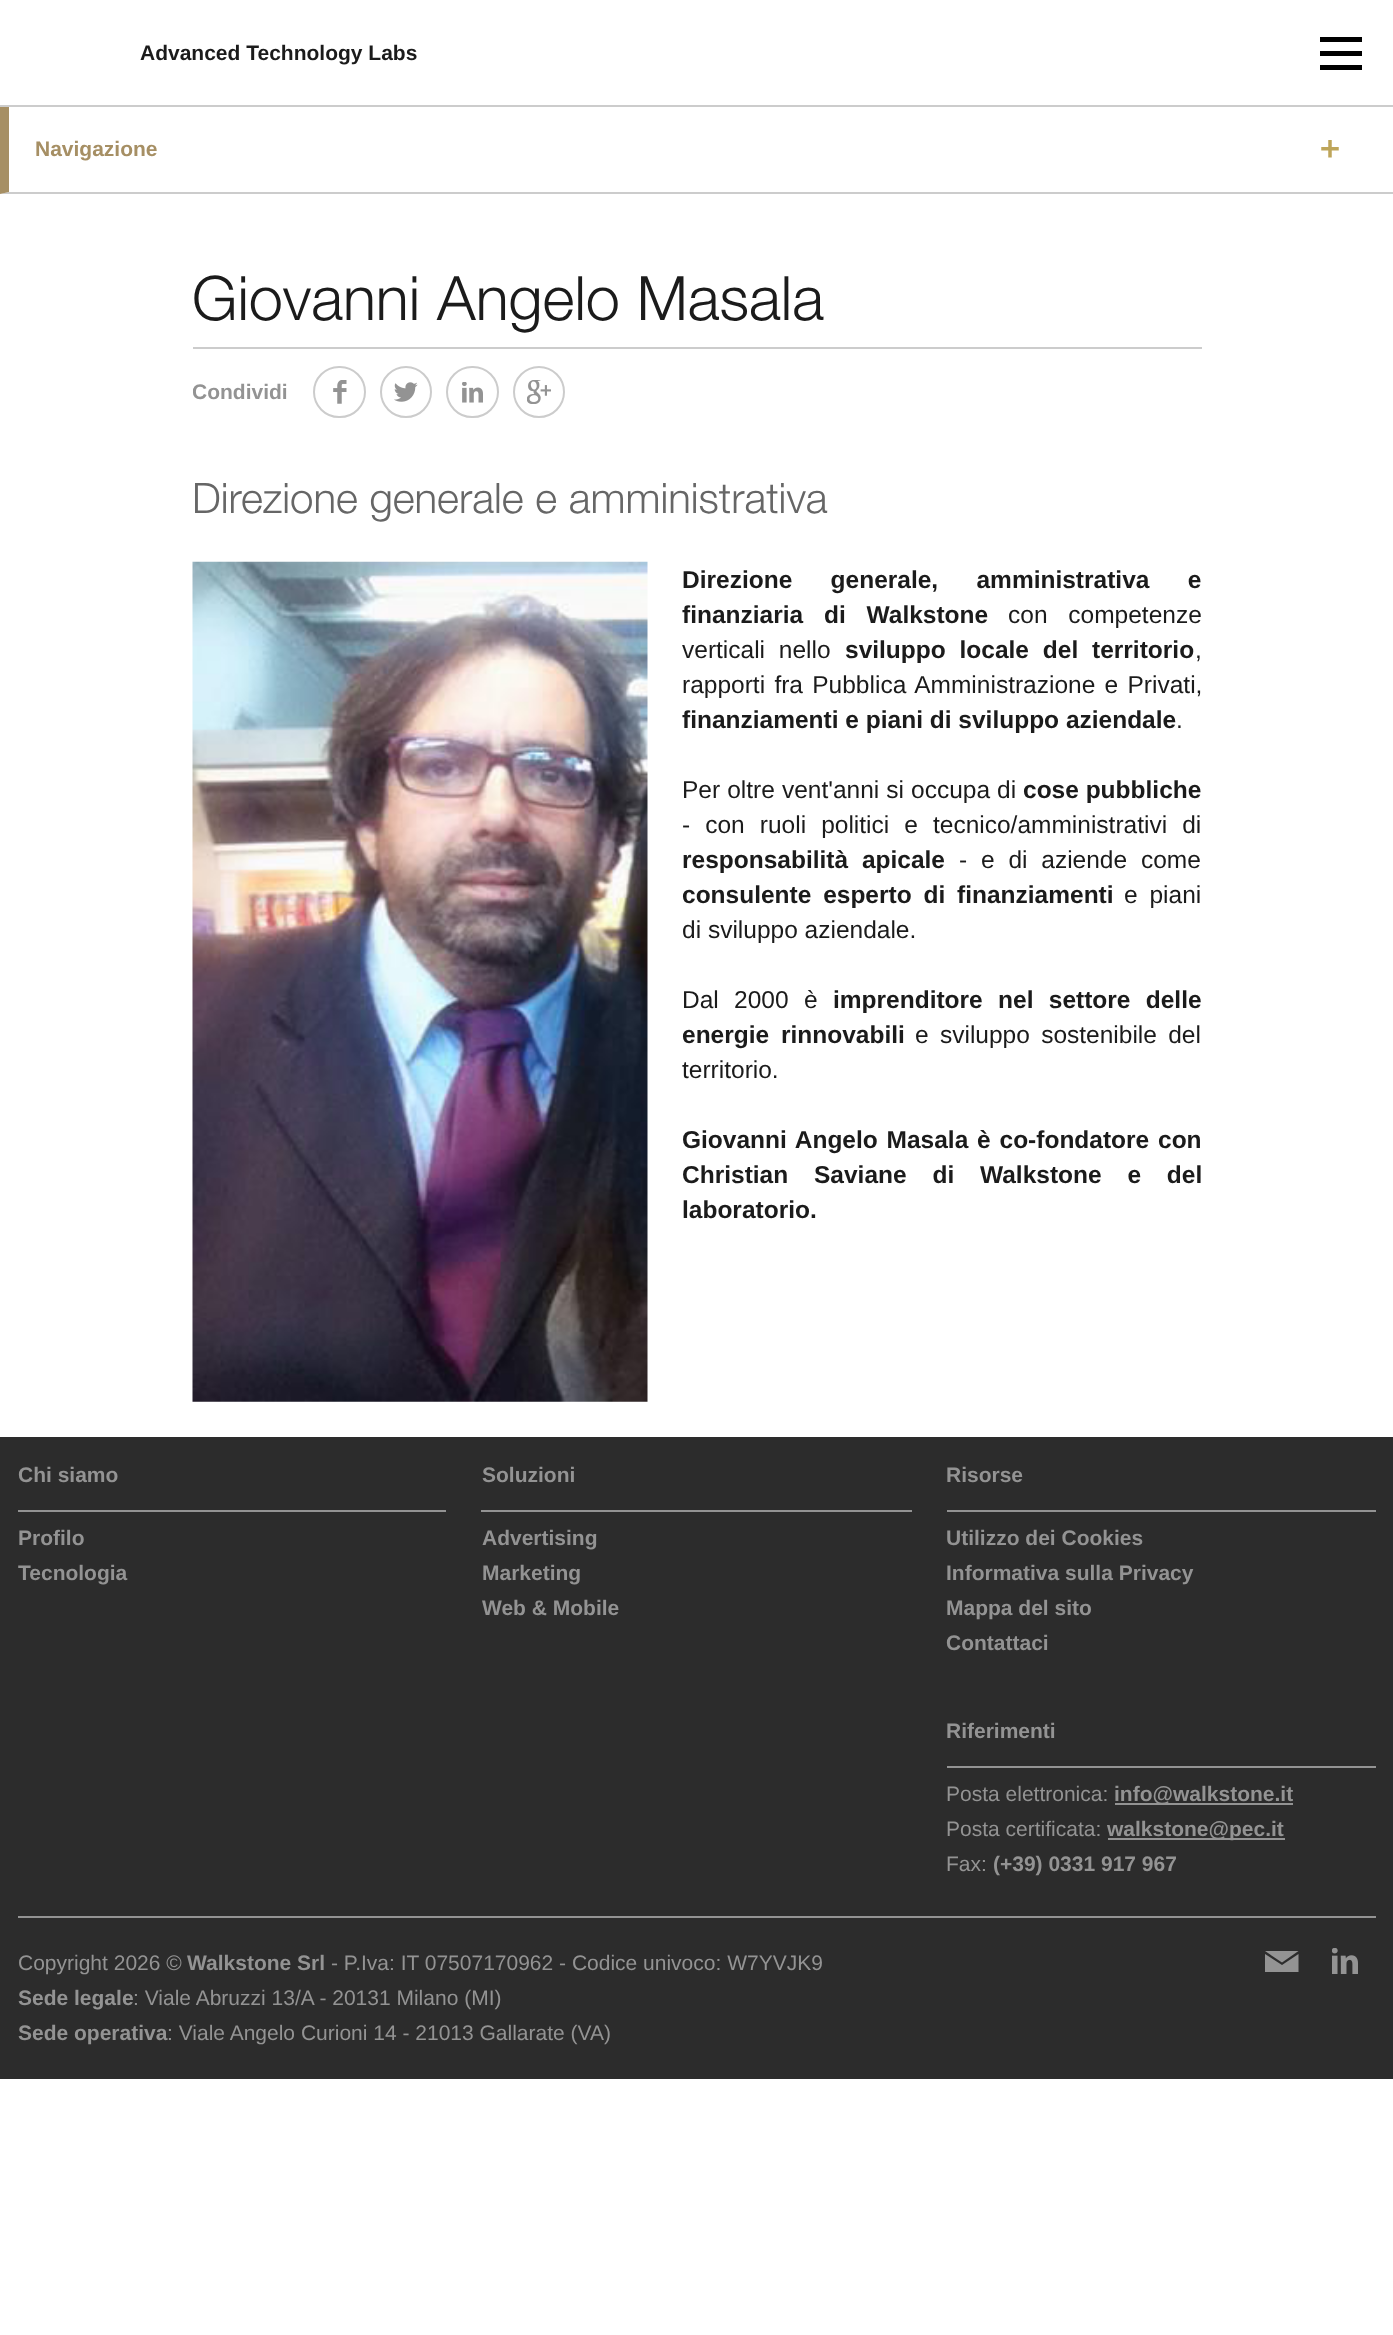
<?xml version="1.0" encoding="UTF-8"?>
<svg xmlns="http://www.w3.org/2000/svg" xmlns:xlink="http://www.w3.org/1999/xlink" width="1393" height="2335">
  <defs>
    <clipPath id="clip1"><rect x="193" y="348" width="1009" height="88" /></clipPath>
  </defs>
  <rect width="100%" height="100%" fill="#ffffff" />
  <path d="M 1393 194 h -1393 l 9 -2 h 1384 z" fill="#cccccc" />
  <path d="M 0 194 v -89 h 9 v 87 z" fill="#a68f64" />
  <rect y="105" width="1393" height="2" fill="#cccccc" />
  <path d="M 1320 37 h 42 v 5 h -42 z m 0 14 h 42 v 5 h -42 z m 0 14 h 42 v 5 h -42 z" fill="#000000" />
  <image x="1321" y="140" width="18" height="18" xlink:href="image1.png" />
  <rect x="193" y="347" width="1009" height="2" fill="#cccccc" />
  <image x="333" y="380" width="14" height="24" xlink:href="image2.png" />
  <rect x="314" y="367" width="51" height="50" rx="25" fill="none" stroke="#cccccc" stroke-width="2" />
  <image x="394" y="382" width="24" height="20" xlink:href="image3.png" />
  <circle cx="406" cy="392" r="25" fill="none" stroke="#cccccc" stroke-width="2" />
  <image x="462" y="382" width="21" height="21" xlink:href="image4.png" />
  <rect x="447" y="367" width="51" height="50" rx="25" fill="none" stroke="#cccccc" stroke-width="2" />
  <image x="527" y="380" width="24" height="24" xlink:href="image5.png" />
  <circle cx="539" cy="392" r="25" fill="none" stroke="#cccccc" stroke-width="2" />
  <image x="192" y="561" width="456" height="841" xlink:href="image6.png" />
  <rect y="1437" width="1393" height="642" fill="#2c2c2c" />
  <rect x="18" y="1510" width="428" height="2" fill="#939393" />
  <rect x="481" y="1510" width="431" height="2" fill="#939393" />
  <rect x="947" y="1510" width="429" height="2" fill="#939393" />
  <rect x="947" y="1766" width="429" height="2" fill="#939393" />
  <rect x="1115" y="1803" width="178" height="2" fill="#939393" />
  <rect x="1108" y="1838" width="177" height="2" fill="#939393" />
  <rect x="18" y="1916" width="1358" height="2" fill="#939393" />
  <path d="M 1282 1962.5 l 16.5 -11.5 h -33.5 z m 0 2.5 l -17 -11 v 18 h 33.5 v -18 z" fill="#939393" />
  <image x="1332" y="1948" width="26" height="26" xlink:href="image7.png" />
  <text x="140" y="60" style="font-family: Liberation Sans; font-size: 21px; font-weight: bold; fill: #1b1b1b">Advanced Technology Labs</text>
  <text x="35" y="156" style="font-family: Liberation Sans; font-size: 21px; font-weight: bold; fill: #a68f64">Navigazione</text>
  <text x="192" y="320" style="font-family: 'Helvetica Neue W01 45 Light'; font-size: 61.25px; font-weight: 300; fill: #1b1b1b">Giovanni Angelo Masala</text>
  <g clip-path="url(#clip1)">
    <text x="192" y="399" style="font-family: Liberation Sans; font-size: 21px; font-weight: bold; fill: #939393">Condividi</text>
  </g>
  <text x="192" y="513" style="font-family: 'Helvetica Neue W01 45 Light'; font-size: 42px; font-weight: 300; fill: #666666">Direzione generale e amministrativa</text>
  <text x="682" y="588" word-spacing="31.5" style="font-family: Liberation Sans; font-size: 24.5px; font-weight: bold; fill: #1b1b1b">Direzione generale, amministrativa e</text>
  <text x="682" y="623" word-spacing="14" style="font-family: Liberation Sans; font-size: 24.5px; font-weight: bold; fill: #1b1b1b">finanziaria di Walkstone</text>
  <text x="1008" y="623" word-spacing="14" style="font-family: Liberation Sans; font-size: 24.5px; fill: #1b1b1b">con competenze</text>
  <text x="682" y="658" word-spacing="7" style="font-family: Liberation Sans; font-size: 24.5px; fill: #1b1b1b">verticali nello</text>
  <text x="845" y="658" word-spacing="7" style="font-family: Liberation Sans; font-size: 24.5px; font-weight: bold; fill: #1b1b1b">sviluppo locale del territorio</text>
  <text x="1195" y="658" style="font-family: Liberation Sans; font-size: 24.5px; fill: #1b1b1b">,</text>
  <text x="682" y="693" word-spacing="2.5" style="font-family: Liberation Sans; font-size: 24.5px; fill: #1b1b1b">rapporti fra Pubblica Amministrazione e Privati,</text>
  <text x="682" y="728" style="font-family: Liberation Sans; font-size: 24.5px; font-weight: bold; fill: #1b1b1b">finanziamenti e piani di sviluppo aziendale</text>
  <text x="1176" y="728" style="font-family: Liberation Sans; font-size: 24.5px; fill: #1b1b1b">.</text>
  <text x="682" y="798" word-spacing="0.25" style="font-family: Liberation Sans; font-size: 24.5px; fill: #1b1b1b">Per oltre vent'anni si occupa di</text>
  <text x="1023" y="798" style="font-family: Liberation Sans; font-size: 24.5px; font-weight: bold; fill: #1b1b1b">cose pubbliche</text>
  <text x="682" y="833" word-spacing="8.25" style="font-family: Liberation Sans; font-size: 24.5px; fill: #1b1b1b">- con ruoli politici e tecnico/amministrativi di</text>
  <text x="682" y="868" word-spacing="7" style="font-family: Liberation Sans; font-size: 24.5px; font-weight: bold; fill: #1b1b1b">responsabilità apicale</text>
  <text x="959" y="868" word-spacing="7" style="font-family: Liberation Sans; font-size: 24.5px; fill: #1b1b1b">- e di aziende come</text>
  <text x="682" y="903" word-spacing="5" style="font-family: Liberation Sans; font-size: 24.5px; font-weight: bold; fill: #1b1b1b">consulente esperto di finanziamenti</text>
  <text x="1124" y="903" word-spacing="5" style="font-family: Liberation Sans; font-size: 24.5px; fill: #1b1b1b">e piani</text>
  <text x="682" y="938" style="font-family: Liberation Sans; font-size: 24.5px; fill: #1b1b1b">di sviluppo aziendale.</text>
  <text x="682" y="1008" word-spacing="8.5" style="font-family: Liberation Sans; font-size: 24.5px; fill: #1b1b1b">Dal 2000 è</text>
  <text x="833" y="1008" word-spacing="8.5" style="font-family: Liberation Sans; font-size: 24.5px; font-weight: bold; fill: #1b1b1b">imprenditore nel settore delle</text>
  <text x="682" y="1043" word-spacing="5" style="font-family: Liberation Sans; font-size: 24.5px; font-weight: bold; fill: #1b1b1b">energie rinnovabili</text>
  <text x="915" y="1043" word-spacing="4.5" style="font-family: Liberation Sans; font-size: 24.5px; fill: #1b1b1b">e sviluppo sostenibile del</text>
  <text x="682" y="1078" style="font-family: Liberation Sans; font-size: 24.5px; fill: #1b1b1b">territorio.</text>
  <text x="682" y="1148" word-spacing="2" style="font-family: Liberation Sans; font-size: 24.5px; font-weight: bold; fill: #1b1b1b">Giovanni Angelo Masala è co-fondatore con</text>
  <text x="682" y="1183" word-spacing="19" style="font-family: Liberation Sans; font-size: 24.5px; font-weight: bold; fill: #1b1b1b">Christian Saviane di Walkstone e del</text>
  <text x="682" y="1218" style="font-family: Liberation Sans; font-size: 24.5px; font-weight: bold; fill: #1b1b1b">laboratorio.</text>
  <text x="18" y="1482" style="font-family: Liberation Sans; font-size: 21px; font-weight: bold; fill: #939393">Chi siamo</text>
  <text x="18" y="1545" style="font-family: Liberation Sans; font-size: 21px; font-weight: bold; fill: #939393">Profilo</text>
  <text x="18" y="1580" style="font-family: Liberation Sans; font-size: 21px; font-weight: bold; fill: #939393">Tecnologia</text>
  <text x="482" y="1482" style="font-family: Liberation Sans; font-size: 21px; font-weight: bold; fill: #939393">Soluzioni</text>
  <text x="482" y="1545" style="font-family: Liberation Sans; font-size: 21px; font-weight: bold; fill: #939393">Advertising</text>
  <text x="482" y="1580" style="font-family: Liberation Sans; font-size: 21px; font-weight: bold; fill: #939393">Marketing</text>
  <text x="482" y="1615" style="font-family: Liberation Sans; font-size: 21px; font-weight: bold; fill: #939393">Web &amp; Mobile</text>
  <text x="946" y="1482" style="font-family: Liberation Sans; font-size: 21px; font-weight: bold; fill: #939393">Risorse</text>
  <text x="946" y="1545" style="font-family: Liberation Sans; font-size: 21px; font-weight: bold; fill: #939393">Utilizzo dei Cookies</text>
  <text x="946" y="1580" style="font-family: Liberation Sans; font-size: 21px; font-weight: bold; fill: #939393">Informativa sulla Privacy</text>
  <text x="946" y="1615" style="font-family: Liberation Sans; font-size: 21px; font-weight: bold; fill: #939393">Mappa del sito</text>
  <text x="946" y="1650" style="font-family: Liberation Sans; font-size: 21px; font-weight: bold; fill: #939393">Contattaci</text>
  <text x="946" y="1738" style="font-family: Liberation Sans; font-size: 21px; font-weight: bold; fill: #939393">Riferimenti</text>
  <text x="946" y="1801" style="font-family: Liberation Sans; font-size: 21px; fill: #939393">Posta elettronica:</text>
  <text x="1114" y="1801" style="font-family: Liberation Sans; font-size: 21px; font-weight: bold; fill: #939393">info@walkstone.it</text>
  <text x="946" y="1836" style="font-family: Liberation Sans; font-size: 21px; fill: #939393">Posta certificata:</text>
  <text x="1107" y="1836" style="font-family: Liberation Sans; font-size: 21px; font-weight: bold; fill: #939393">walkstone@pec.it</text>
  <text x="946" y="1871" style="font-family: Liberation Sans; font-size: 21px; fill: #939393">Fax:</text>
  <text x="993" y="1871" style="font-family: Liberation Sans; font-size: 21px; font-weight: bold; fill: #939393">(+39) 0331 917 967</text>
  <text x="18" y="1970" style="font-family: Liberation Sans; font-size: 21px; fill: #939393">Copyright 2026 ©</text>
  <text x="187" y="1970" style="font-family: Liberation Sans; font-size: 21px; font-weight: bold; fill: #939393">Walkstone Srl</text>
  <text x="331" y="1970" style="font-family: Liberation Sans; font-size: 21px; fill: #939393">- P.Iva: IT 07507170962 - Codice univoco: W7YVJK9</text>
  <text x="18" y="2005" style="font-family: Liberation Sans; font-size: 21px; font-weight: bold; fill: #939393">Sede legale</text>
  <text x="133" y="2005" style="font-family: Liberation Sans; font-size: 21px; fill: #939393">: Viale Abruzzi 13/A - 20131 Milano (MI)</text>
  <text x="18" y="2040" style="font-family: Liberation Sans; font-size: 21px; font-weight: bold; fill: #939393">Sede operativa</text>
  <text x="167" y="2040" style="font-family: Liberation Sans; font-size: 21px; fill: #939393">: Viale Angelo Curioni 14 - 21013 Gallarate (VA)</text>
</svg>
